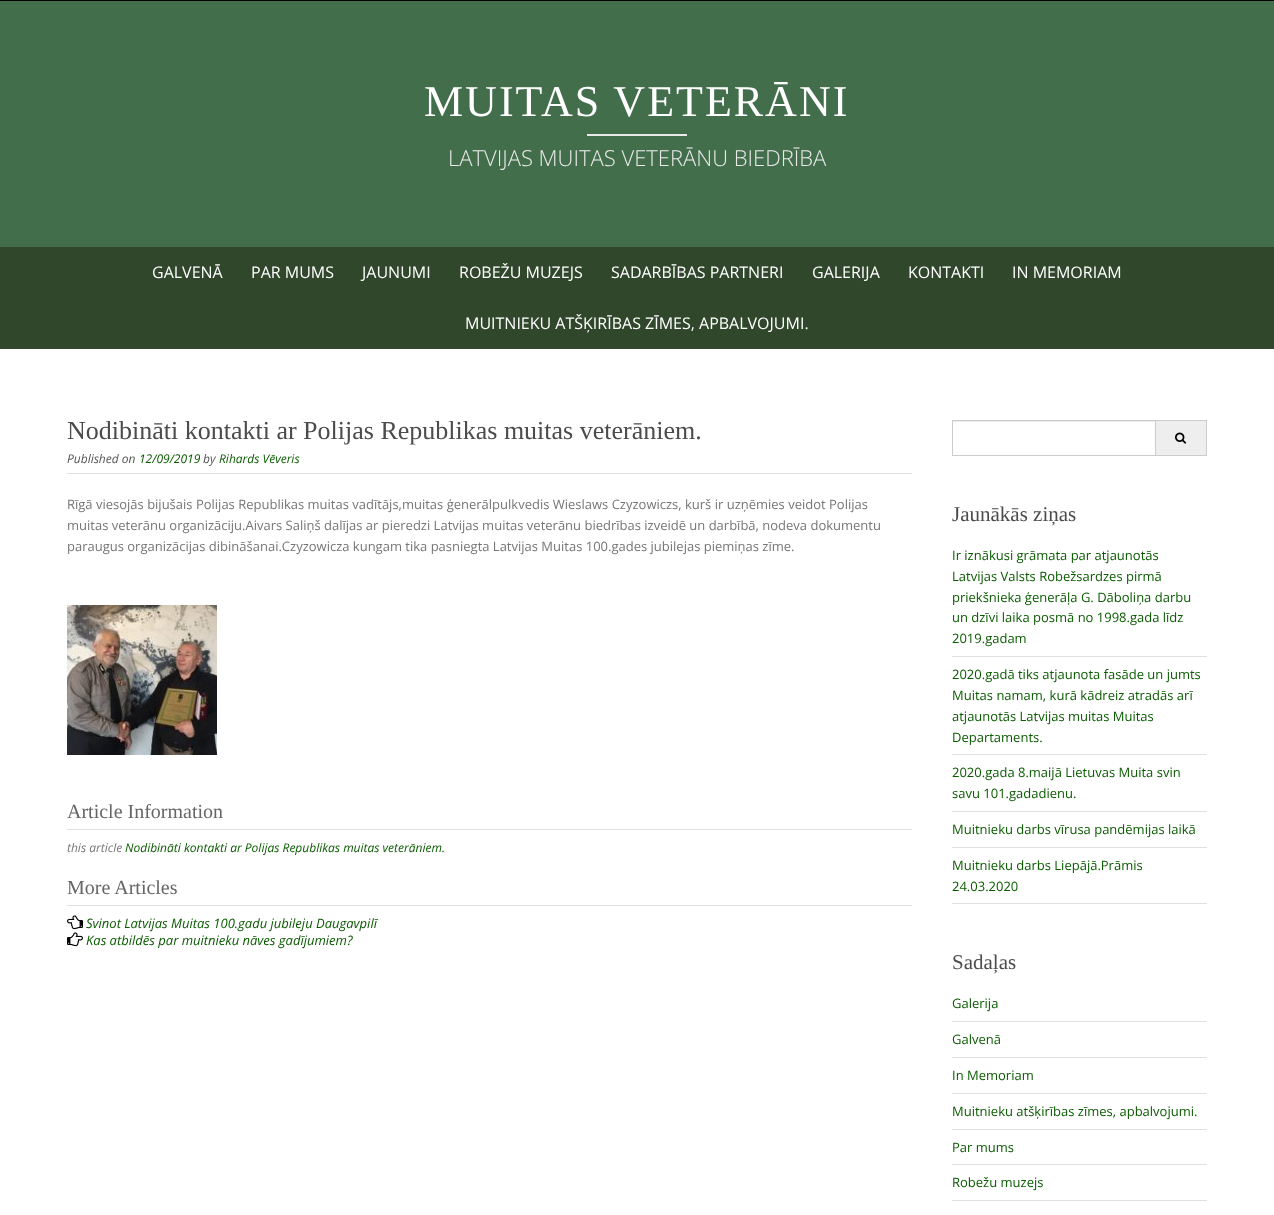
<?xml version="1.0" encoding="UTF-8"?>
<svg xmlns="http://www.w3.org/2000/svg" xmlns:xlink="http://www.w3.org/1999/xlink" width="1274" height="1215">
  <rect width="100%" height="100%" fill="#000000" />
  <rect y="1" width="1274" height="246" fill="#426e4b" />
  <rect x="587" y="134" width="100" height="2" fill="#eaeaea" />
  <rect y="247" width="1274" height="102" fill="#30472c" />
  <rect y="349" width="1274" height="866" fill="#ffffff" />
  <rect x="67" y="473" width="845" height="1" fill="#e0e0e0" />
  <image x="67" y="605" width="150" height="150" xlink:href="image1.png" />
  <rect x="67" y="829" width="845" height="1" fill="#e0e0e0" />
  <rect x="67" y="905" width="845" height="1" fill="#e0e0e0" />
  <image x="67" y="915" width="16" height="15" xlink:href="image2.png" />
  <image x="67" y="932" width="16" height="15" xlink:href="image3.png" />
  <rect x="1156" y="421" width="50" height="34" fill="#eeeeee" />
  <rect x="1154.5" y="420.5" width="52" height="35" fill="none" stroke="#cccccc" />
  <rect x="1154" y="422" width="1" height="33" fill="#ffffff" />
  <rect x="953" y="421" width="202" height="1" fill="#ececec" />
  <rect x="952.5" y="420.5" width="203" height="35" fill="none" stroke="#cccccc" />
  <image x="1175" y="432" width="12" height="12" xlink:href="image4.png" />
  <rect x="952" y="656" width="255" height="1" fill="#e0e0e0" />
  <rect x="952" y="754" width="255" height="1" fill="#e0e0e0" />
  <rect x="952" y="811" width="255" height="1" fill="#e0e0e0" />
  <rect x="952" y="847" width="255" height="1" fill="#e0e0e0" />
  <rect x="952" y="903" width="255" height="1" fill="#e0e0e0" />
  <rect x="952" y="1021" width="255" height="1" fill="#e0e0e0" />
  <rect x="952" y="1057" width="255" height="1" fill="#e0e0e0" />
  <rect x="952" y="1093" width="255" height="1" fill="#e0e0e0" />
  <rect x="952" y="1129" width="255" height="1" fill="#e0e0e0" />
  <rect x="952" y="1164" width="255" height="1" fill="#e0e0e0" />
  <rect x="952" y="1200" width="255" height="1" fill="#e0e0e0" />
  <text x="424" y="116" style="font-family: Liberation Serif; font-size: 44px; letter-spacing: 2px; fill: #ffffff">MUITAS VETERĀNI</text>
  <text x="448" y="166" style="font-family: Open Sans; font-size: 22px; font-weight: 300; fill: #eaeaea">LATVIJAS MUITAS VETERĀNU BIEDRĪBA</text>
  <text x="152" y="278" style="font-family: Open Sans; font-size: 16px; fill: #ffffff">GALVENĀ</text>
  <text x="251" y="278" style="font-family: Open Sans; font-size: 16px; fill: #ffffff">PAR MUMS</text>
  <text x="362" y="278" style="font-family: Open Sans; font-size: 16px; fill: #ffffff">JAUNUMI</text>
  <text x="459" y="278" style="font-family: Open Sans; font-size: 16px; fill: #ffffff">ROBEŽU MUZEJS</text>
  <text x="611" y="278" style="font-family: Open Sans; font-size: 16px; fill: #ffffff">SADARBĪBAS PARTNERI</text>
  <text x="812" y="278" style="font-family: Open Sans; font-size: 16px; fill: #ffffff">GALERIJA</text>
  <text x="908" y="278" style="font-family: Open Sans; font-size: 16px; fill: #ffffff">KONTAKTI</text>
  <text x="1012" y="278" style="font-family: Open Sans; font-size: 16px; fill: #ffffff">IN MEMORIAM</text>
  <text x="465" y="329" style="font-family: Open Sans; font-size: 16px; fill: #ffffff">MUITNIEKU ATŠĶIRĪBAS ZĪMES, APBALVOJUMI.</text>
  <text x="67" y="439" style="font-family: Liberation Serif; font-size: 26px; fill: #4c4c4c">Nodibināti kontakti ar Polijas Republikas muitas veterāniem.</text>
  <text x="67" y="463" style="font-family: Open Sans; font-size: 12px; font-style: italic; fill: #545454">Published on</text>
  <text x="139" y="463" style="font-family: Open Sans; font-size: 12px; font-style: italic; fill: #0a5b00">12/09/2019</text>
  <text x="203" y="463" style="font-family: Open Sans; font-size: 12px; font-style: italic; fill: #545454">by</text>
  <text x="219" y="463" style="font-family: Open Sans; font-size: 12px; font-style: italic; fill: #0a5b00">Rihards Vēveris</text>
  <text x="67" y="509" style="font-family: Open Sans; font-size: 13px; fill: #767676">Rīgā viesojās bijušais Polijas Republikas muitas vadītājs,muitas ģenerālpulkvedis Wieslaws Czyzowiczs, kurš ir uzņēmies veidot Polijas</text>
  <text x="67" y="530" style="font-family: Open Sans; font-size: 13px; fill: #767676">muitas veterānu organizāciju.Aivars Saliņš dalījas ar pieredzi Latvijas muitas veterānu biedrības izveidē un darbībā, nodeva dokumentu</text>
  <text x="67" y="551" style="font-family: Open Sans; font-size: 13px; fill: #767676">paraugus organizācijas dibināšanai.Czyzowicza kungam tika pasniegta Latvijas Muitas 100.gades jubilejas piemiņas zīme.</text>
  <text x="67" y="818" style="font-family: Liberation Serif; font-size: 20px; fill: #666666">Article Information</text>
  <text x="67" y="852" style="font-family: Open Sans; font-size: 12px; font-style: italic; fill: #767676">this article</text>
  <text x="125" y="852" style="font-family: Open Sans; font-size: 12px; font-style: italic; fill: #0a5b00">Nodibināti kontakti ar Polijas Republikas muitas veterāniem.</text>
  <text x="67" y="894" style="font-family: Liberation Serif; font-size: 20px; fill: #666666">More Articles</text>
  <text x="86" y="928" style="font-family: Open Sans; font-size: 13px; font-style: italic; fill: #0a5b00">Svinot Latvijas Muitas 100.gadu jubileju Daugavpilī</text>
  <text x="86" y="945" style="font-family: Open Sans; font-size: 13px; font-style: italic; fill: #0a5b00">Kas atbildēs par muitnieku nāves gadījumiem?</text>
  <text x="952" y="521" style="font-family: Liberation Serif; font-size: 21px; fill: #4c4c4c">Jaunākās ziņas</text>
  <text x="952" y="560" style="font-family: Open Sans; font-size: 13px; fill: #0a5b00">Ir iznākusi grāmata par atjaunotās</text>
  <text x="952" y="581" style="font-family: Open Sans; font-size: 13px; fill: #0a5b00">Latvijas Valsts Robežsardzes pirmā</text>
  <text x="952" y="602" style="font-family: Open Sans; font-size: 13px; fill: #0a5b00">priekšnieka ģenerāļa G. Dāboliņa darbu</text>
  <text x="952" y="622" style="font-family: Open Sans; font-size: 13px; fill: #0a5b00">un dzīvi laika posmā no 1998.gada līdz</text>
  <text x="952" y="643" style="font-family: Open Sans; font-size: 13px; fill: #0a5b00">2019.gadam</text>
  <text x="952" y="679" style="font-family: Open Sans; font-size: 13px; fill: #0a5b00">2020.gadā tiks atjaunota fasāde un jumts</text>
  <text x="952" y="700" style="font-family: Open Sans; font-size: 13px; fill: #0a5b00">Muitas namam, kurā kādreiz atradās arī</text>
  <text x="952" y="721" style="font-family: Open Sans; font-size: 13px; fill: #0a5b00">atjaunotās Latvijas muitas Muitas</text>
  <text x="952" y="742" style="font-family: Open Sans; font-size: 13px; fill: #0a5b00">Departaments.</text>
  <text x="952" y="777" style="font-family: Open Sans; font-size: 13px; fill: #0a5b00">2020.gada 8.maijā Lietuvas Muita svin</text>
  <text x="952" y="798" style="font-family: Open Sans; font-size: 13px; fill: #0a5b00">savu 101.gadadienu.</text>
  <text x="952" y="834" style="font-family: Open Sans; font-size: 13px; fill: #0a5b00">Muitnieku darbs vīrusa pandēmijas laikā</text>
  <text x="952" y="870" style="font-family: Open Sans; font-size: 13px; fill: #0a5b00">Muitnieku darbs Liepājā.Prāmis</text>
  <text x="952" y="891" style="font-family: Open Sans; font-size: 13px; fill: #0a5b00">24.03.2020</text>
  <text x="952" y="969" style="font-family: Liberation Serif; font-size: 21px; fill: #4c4c4c">Sadaļas</text>
  <text x="952" y="1008" style="font-family: Open Sans; font-size: 13px; fill: #0a5b00">Galerija</text>
  <text x="952" y="1044" style="font-family: Open Sans; font-size: 13px; fill: #0a5b00">Galvenā</text>
  <text x="952" y="1080" style="font-family: Open Sans; font-size: 13px; fill: #0a5b00">In Memoriam</text>
  <text x="952" y="1116" style="font-family: Open Sans; font-size: 13px; fill: #0a5b00">Muitnieku atšķirības zīmes, apbalvojumi.</text>
  <text x="952" y="1152" style="font-family: Open Sans; font-size: 13px; fill: #0a5b00">Par mums</text>
  <text x="952" y="1187" style="font-family: Open Sans; font-size: 13px; fill: #0a5b00">Robežu muzejs</text>
</svg>
